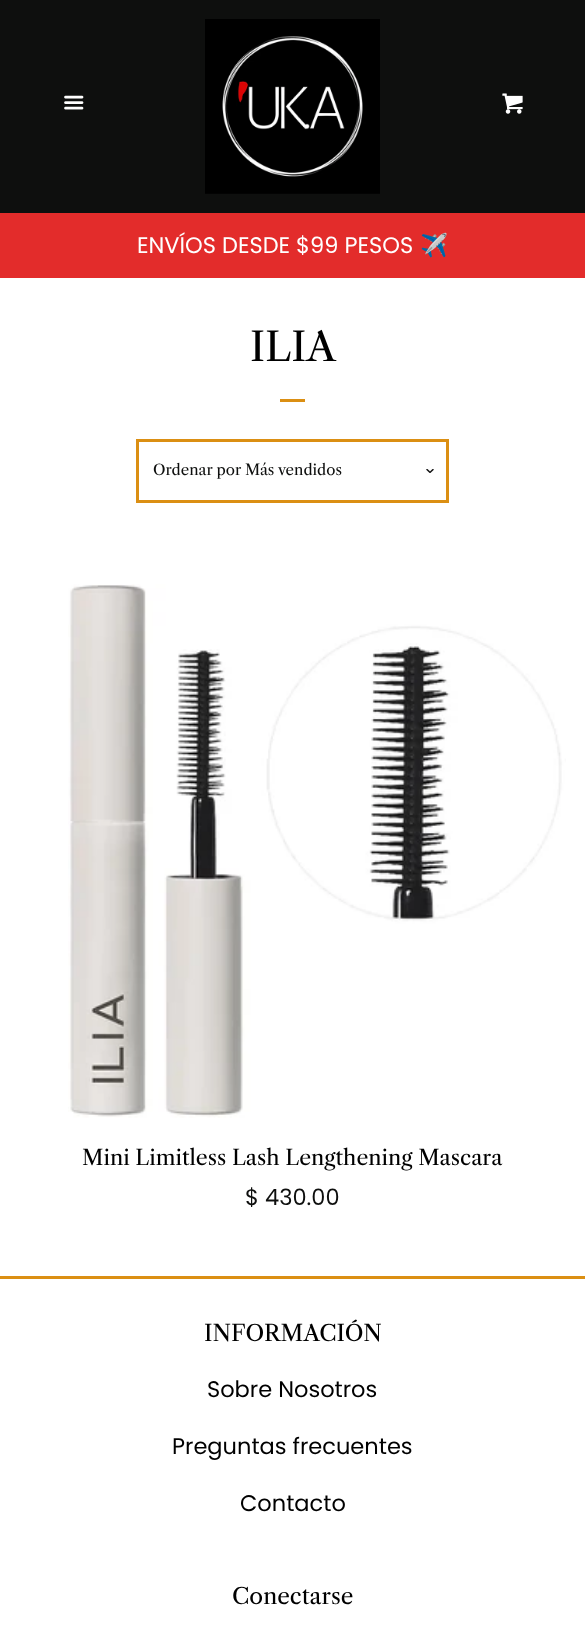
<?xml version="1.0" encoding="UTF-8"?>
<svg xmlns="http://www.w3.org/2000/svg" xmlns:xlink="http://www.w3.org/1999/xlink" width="585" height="1632">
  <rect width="100%" height="100%" fill="#0e0f0e" />
  <image x="64" y="95" width="20" height="15" xlink:href="image1.png" />
  <image x="205" y="19" width="175" height="175" xlink:href="image2.png" />
  <image x="502" y="93" width="21" height="21" xlink:href="image3.png" />
  <rect y="278" width="585" height="1354" fill="#ffffff" />
  <rect y="213" width="585" height="65" fill="#e32c2b" />
  <rect x="280" y="399" width="25" height="3" fill="#db8f13" />
  <image x="426" y="469" width="8" height="4" xlink:href="image4.png" />
  <rect x="137.5" y="440.5" width="310" height="61" fill="none" stroke="#db8f13" stroke-width="3" />
  <image x="68" y="584" width="498" height="534" xlink:href="image5.png" />
  <rect y="1276" width="585" height="3" fill="#db8f13" />
  <text x="137" y="253" style="font-family: Poppins; font-size: 22.5px; fill: #ffffff">ENVÍOS DESDE $99 PESOS</text>
  <text x="420" y="253" style="font-family: Noto Color Emoji; font-size: 22.5px; fill: #ffffff">✈️</text>
  <text x="250" y="361" style="font-family: Libre Caslon Text; font-size: 40px; fill: #000000">ILIA</text>
  <text x="153" y="475" style="font-family: Libre Caslon Text; font-size: 15px; fill: #0e0f0e">Ordenar por Más vendidos</text>
  <text x="82" y="1165" style="font-family: Libre Caslon Text; font-size: 21.25px; fill: #000000">Mini Limitless Lash Lengthening Mascara</text>
  <text x="245" y="1205" style="font-family: Poppins; font-size: 22.5px; fill: #0e0f0e">$ 430.00</text>
  <text x="204" y="1341" style="font-family: Libre Caslon Text; font-size: 22.5px; fill: #000000">INFORMACIÓN</text>
  <text x="207" y="1397" style="font-family: Poppins; font-size: 22.5px; fill: #000000">Sobre Nosotros</text>
  <text x="172" y="1454" style="font-family: Poppins; font-size: 22.5px; fill: #000000">Preguntas frecuentes</text>
  <text x="240" y="1511" style="font-family: Poppins; font-size: 22.5px; fill: #000000">Contacto</text>
  <text x="232" y="1604" style="font-family: Libre Caslon Text; font-size: 22.5px; fill: #000000">Conectarse</text>
</svg>
